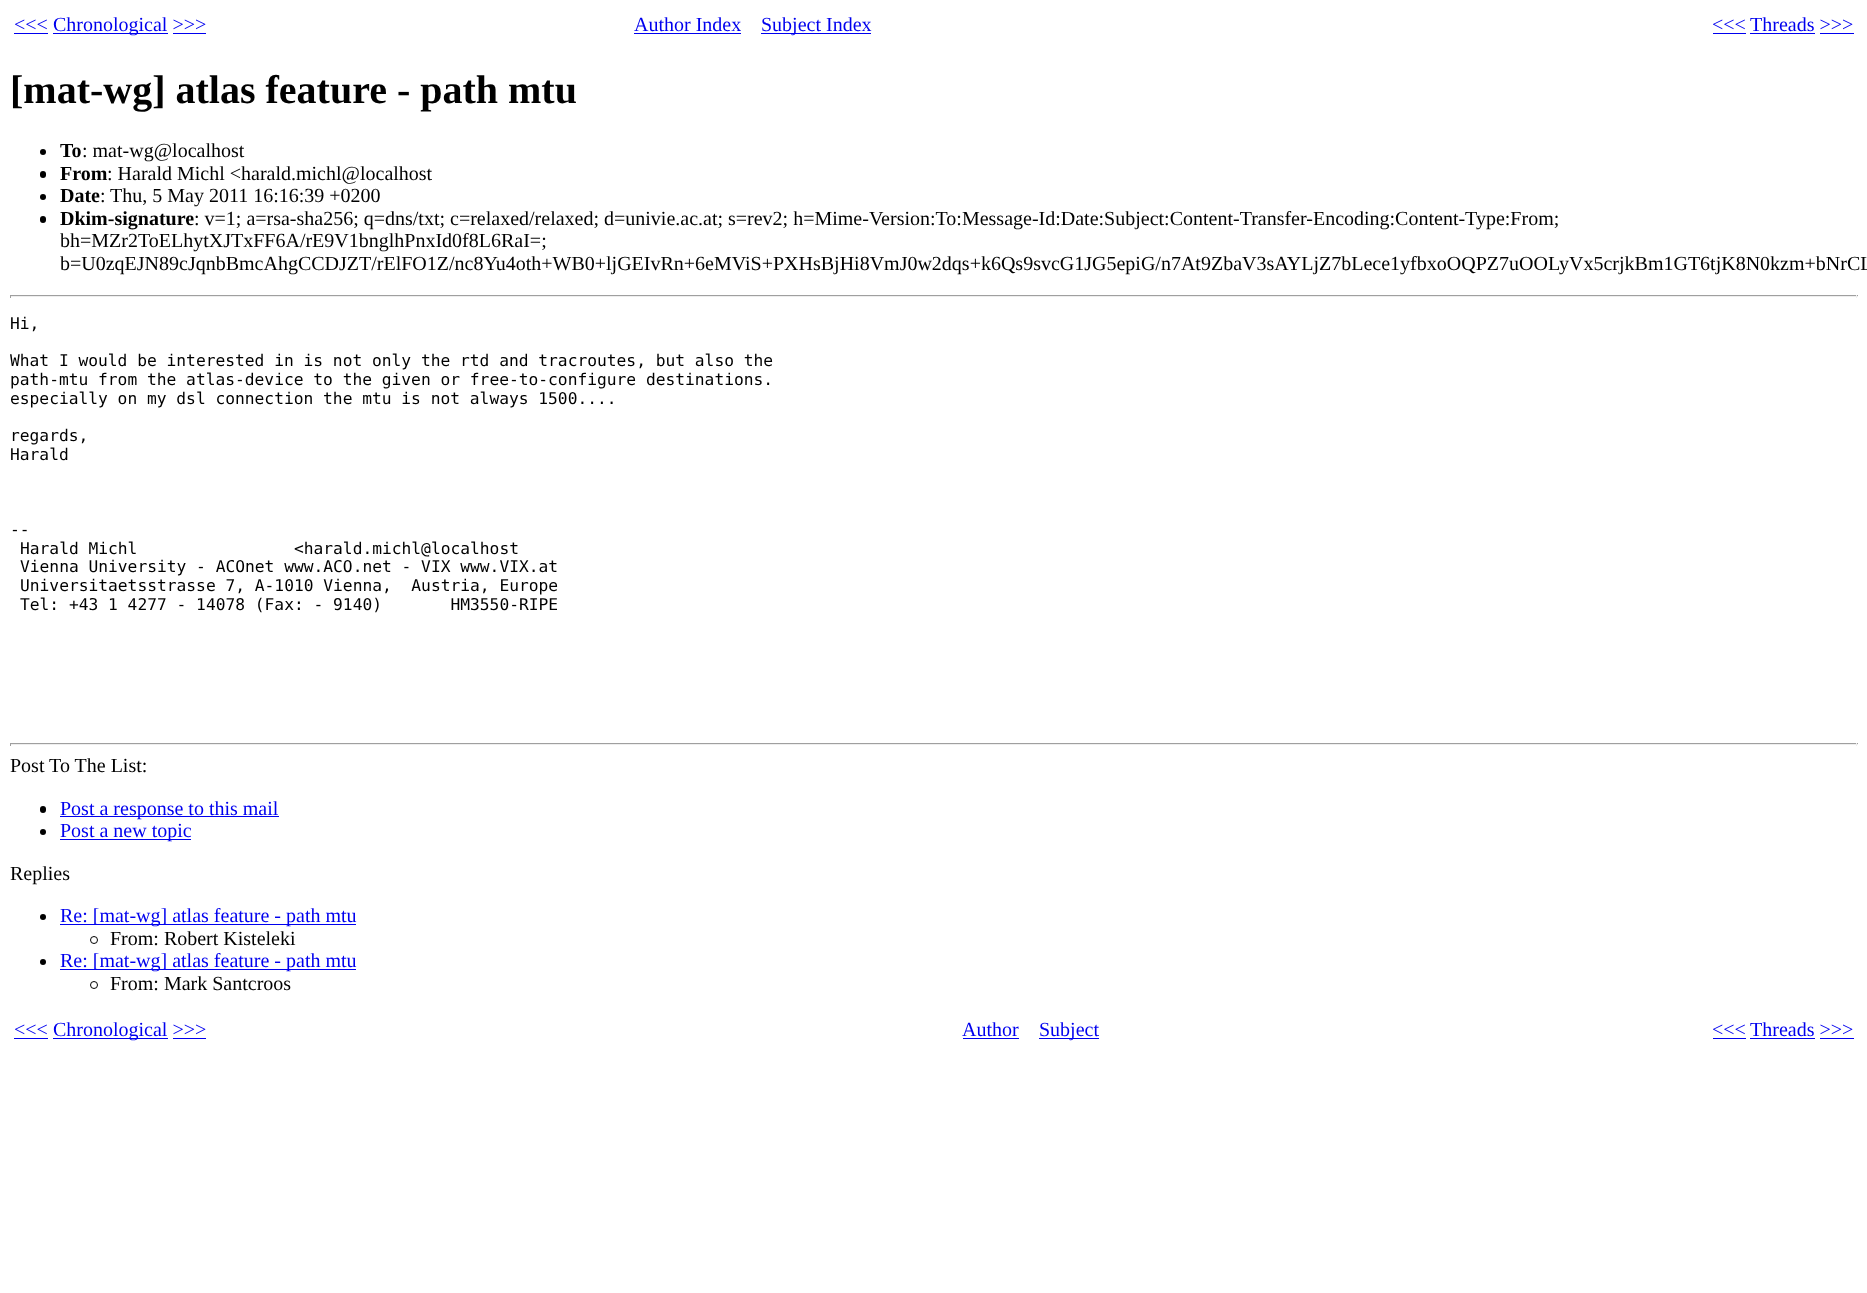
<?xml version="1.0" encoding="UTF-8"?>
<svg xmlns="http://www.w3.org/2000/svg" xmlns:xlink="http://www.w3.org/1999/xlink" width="1867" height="1293">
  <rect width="100%" height="100%" fill="#ffffff" />
  <rect x="14" y="33" width="34" height="1" fill="#0000ee" />
  <rect x="53" y="33" width="115" height="1" fill="#0000ee" />
  <rect x="173" y="33" width="33" height="1" fill="#0000ee" />
  <rect x="634" y="33" width="107" height="1" fill="#0000ee" />
  <rect x="761" y="33" width="110" height="1" fill="#0000ee" />
  <rect x="1713" y="33" width="33" height="1" fill="#0000ee" />
  <rect x="1750" y="33" width="65" height="1" fill="#0000ee" />
  <rect x="1820" y="33" width="34" height="1" fill="#0000ee" />
  <circle cx="43" cy="152" r="3" fill="#000000" />
  <rect x="40" y="171" width="6" height="7" rx="3" fill="#000000" />
  <circle cx="43" cy="197" r="3" fill="#000000" />
  <rect x="40" y="216" width="6" height="7" rx="3" fill="#000000" />
  <rect x="10" y="295" width="1848" height="1" fill="#9f9f9f" />
  <rect x="1856" y="295" width="1" height="3" fill="#eeeeee" />
  <rect x="10" y="296" width="1848" height="1" fill="#eeeeee" />
  <rect x="10" y="295" width="1" height="3" fill="#9f9f9f" />
  <rect x="10" y="743" width="1848" height="1" fill="#9f9f9f" />
  <rect x="1856" y="743" width="1" height="3" fill="#eeeeee" />
  <rect x="10" y="744" width="1848" height="1" fill="#eeeeee" />
  <rect x="10" y="743" width="1" height="3" fill="#9f9f9f" />
  <rect x="40" y="806" width="6" height="7" rx="3" fill="#000000" />
  <rect x="60" y="816" width="219" height="1" fill="#0000ee" />
  <circle cx="43" cy="832" r="3" fill="#000000" />
  <rect x="60" y="839" width="131" height="1" fill="#0000ee" />
  <circle cx="43" cy="917" r="3" fill="#000000" />
  <rect x="60" y="924" width="296" height="1" fill="#0000ee" />
  <circle cx="94" cy="940" r="3.5" fill="none" stroke="#000000" />
  <circle cx="43" cy="962" r="3" fill="#000000" />
  <rect x="60" y="969" width="296" height="1" fill="#0000ee" />
  <circle cx="94" cy="985" r="3.5" fill="none" stroke="#000000" />
  <rect x="14" y="1038" width="34" height="1" fill="#0000ee" />
  <rect x="53" y="1038" width="115" height="1" fill="#0000ee" />
  <rect x="173" y="1038" width="33" height="1" fill="#0000ee" />
  <rect x="963" y="1038" width="56" height="1" fill="#0000ee" />
  <rect x="1039" y="1038" width="60" height="1" fill="#0000ee" />
  <rect x="1713" y="1038" width="33" height="1" fill="#0000ee" />
  <rect x="1750" y="1038" width="65" height="1" fill="#0000ee" />
  <rect x="1820" y="1038" width="34" height="1" fill="#0000ee" />
  <text x="14" y="31" style="font-family: Liberation Serif; font-size: 20px; fill: #0000ee">&lt;&lt;&lt;</text>
  <text x="53" y="31" style="font-family: Liberation Serif; font-size: 20px; fill: #0000ee">Chronological &gt;&gt;&gt;</text>
  <text x="634" y="31" style="font-family: Liberation Serif; font-size: 20px; fill: #0000ee">Author Index</text>
  <text x="761" y="31" style="font-family: Liberation Serif; font-size: 20px; fill: #0000ee">Subject Index</text>
  <text x="1712" y="31" style="font-family: Liberation Serif; font-size: 20px; fill: #0000ee">&lt;&lt;&lt;</text>
  <text x="1750" y="31" style="font-family: Liberation Serif; font-size: 20px; fill: #0000ee">Threads &gt;&gt;&gt;</text>
  <text x="10" y="103" style="font-family: Liberation Serif; font-size: 40px; font-weight: bold; fill: #000000">[mat-wg] atlas feature - path mtu</text>
  <text x="60" y="157" style="font-family: Liberation Serif; font-size: 20px; font-weight: bold; fill: #000000">To</text>
  <text x="82" y="157" style="font-family: Liberation Serif; font-size: 20px; fill: #000000">: mat-wg@localhost</text>
  <text x="60" y="180" style="font-family: Liberation Serif; font-size: 20px; font-weight: bold; fill: #000000">From</text>
  <text x="107" y="180" style="font-family: Liberation Serif; font-size: 20px; fill: #000000">: Harald Michl &lt;harald.michl@localhost</text>
  <text x="60" y="202" style="font-family: Liberation Serif; font-size: 20px; font-weight: bold; fill: #000000">Date</text>
  <text x="100" y="202" style="font-family: Liberation Serif; font-size: 20px; fill: #000000">:</text>
  <text x="110" y="202" style="font-family: Liberation Serif; font-size: 20px; fill: #000000">Thu, 5 May 2011 16:16:39 +0200</text>
  <text x="60" y="225" style="font-family: Liberation Serif; font-size: 20px; font-weight: bold; fill: #000000">Dkim-signature</text>
  <text x="194" y="225" style="font-family: Liberation Serif; font-size: 20px; fill: #000000">: v=1; a=rsa-sha256; q=dns/txt; c=relaxed/relaxed; d=univie.ac.at; s=rev2; h=Mime-Version:To:Message-Id:Date:Subject:Content-Transfer-Encoding:Content-Type:From;</text>
  <text x="60" y="247" style="font-family: Liberation Serif; font-size: 20px; fill: #000000">bh=MZr2ToELhytXJTxFF6A/rE9V1bnglhPnxId0f8L6RaI=;</text>
  <text x="60" y="270" style="font-family: Liberation Serif; font-size: 20px; fill: #000000">b=U0zqEJN89cJqnbBmcAhgCCDJZT/rElFO1Z/nc8Yu4oth+WB0+ljGEIvRn+6eMViS+PXHsBjHi8VmJ0w2dqs+k6Qs9svcG1JG5epiG/n7At9ZbaV3sAYLjZ7bLece1yfbxoOQPZ7uOOLyVx5crjkBm1GT6tjK8N0kzm+bNrCL</text>
  <text x="10" y="329" style="font-family: DejaVu Sans Mono; font-size: 16.25px; fill: #000000">Hi,</text>
  <text x="10" y="366" style="font-family: DejaVu Sans Mono; font-size: 16.25px; fill: #000000">What I would be interested in is not only the rtd and tracroutes, but also the</text>
  <text x="10" y="385" style="font-family: DejaVu Sans Mono; font-size: 16.25px; fill: #000000">path-mtu from the atlas-device to the given or free-to-configure destinations.</text>
  <text x="10" y="404" style="font-family: DejaVu Sans Mono; font-size: 16.25px; fill: #000000">especially on my dsl connection the mtu is not always 1500....</text>
  <text x="10" y="441" style="font-family: DejaVu Sans Mono; font-size: 16.25px; fill: #000000">regards,</text>
  <text x="10" y="460" style="font-family: DejaVu Sans Mono; font-size: 16.25px; fill: #000000">Harald</text>
  <text x="10" y="535" style="font-family: DejaVu Sans Mono; font-size: 16.25px; fill: #000000">--</text>
  <text x="20" y="554" style="font-family: DejaVu Sans Mono; font-size: 16.25px; fill: #000000" xml:space="preserve">Harald Michl                &lt;harald.michl@localhost</text>
  <text x="20" y="572" style="font-family: DejaVu Sans Mono; font-size: 16.25px; fill: #000000">Vienna University - ACOnet www.ACO.net - VIX www.VIX.at</text>
  <text x="20" y="591" style="font-family: DejaVu Sans Mono; font-size: 16.25px; fill: #000000" xml:space="preserve">Universitaetsstrasse 7, A-1010 Vienna,  Austria, Europe</text>
  <text x="20" y="610" style="font-family: DejaVu Sans Mono; font-size: 16.25px; fill: #000000" xml:space="preserve">Tel: +43 1 4277 - 14078 (Fax: - 9140)       HM3550-RIPE</text>
  <text x="10" y="772" style="font-family: Liberation Serif; font-size: 20px; fill: #000000">Post To The List:</text>
  <text x="60" y="815" style="font-family: Liberation Serif; font-size: 20px; fill: #0000ee">Post a response to this mail</text>
  <text x="60" y="837" style="font-family: Liberation Serif; font-size: 20px; fill: #0000ee">Post a new topic</text>
  <text x="10" y="880" style="font-family: Liberation Serif; font-size: 20px; fill: #000000">Replies</text>
  <text x="60" y="922" style="font-family: Liberation Serif; font-size: 20px; fill: #0000ee">Re: [mat-wg] atlas feature - path mtu</text>
  <text x="110" y="945" style="font-family: Liberation Serif; font-size: 20px; fill: #000000">From: Robert Kisteleki</text>
  <text x="60" y="967" style="font-family: Liberation Serif; font-size: 20px; fill: #0000ee">Re: [mat-wg] atlas feature - path mtu</text>
  <text x="110" y="990" style="font-family: Liberation Serif; font-size: 20px; fill: #000000">From: Mark Santcroos</text>
  <text x="14" y="1036" style="font-family: Liberation Serif; font-size: 20px; fill: #0000ee">&lt;&lt;&lt;</text>
  <text x="53" y="1036" style="font-family: Liberation Serif; font-size: 20px; fill: #0000ee">Chronological &gt;&gt;&gt;</text>
  <text x="962" y="1036" style="font-family: Liberation Serif; font-size: 20px; fill: #0000ee">Author</text>
  <text x="1039" y="1036" style="font-family: Liberation Serif; font-size: 20px; fill: #0000ee">Subject</text>
  <text x="1712" y="1036" style="font-family: Liberation Serif; font-size: 20px; fill: #0000ee">&lt;&lt;&lt;</text>
  <text x="1750" y="1036" style="font-family: Liberation Serif; font-size: 20px; fill: #0000ee">Threads &gt;&gt;&gt;</text>
</svg>
